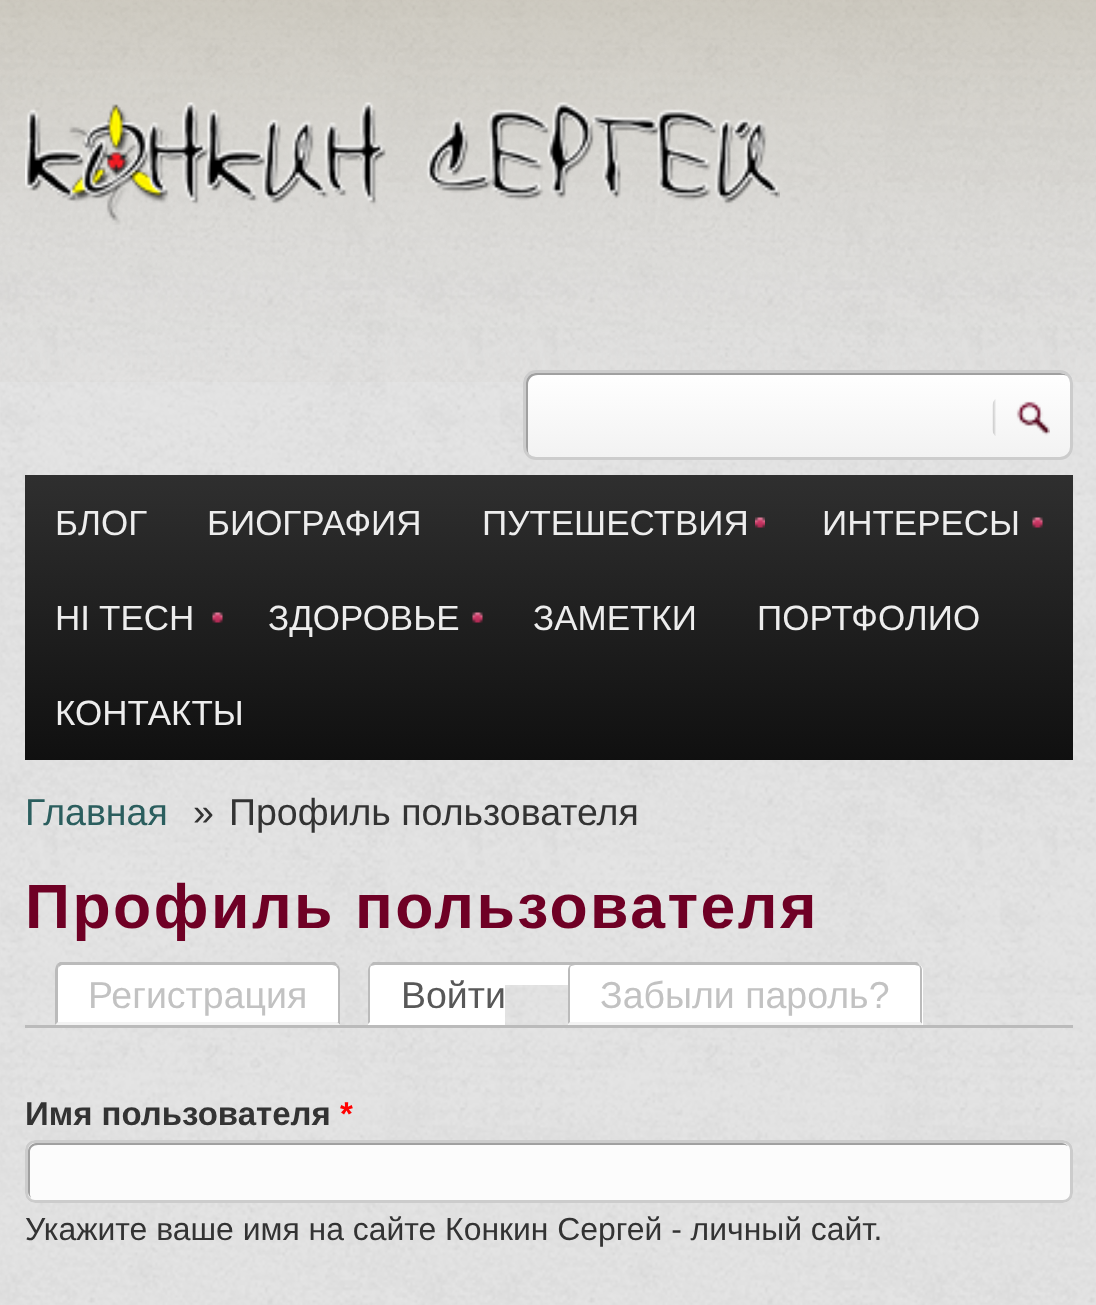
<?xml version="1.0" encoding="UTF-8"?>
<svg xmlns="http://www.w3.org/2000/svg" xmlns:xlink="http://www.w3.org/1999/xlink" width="1096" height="1305">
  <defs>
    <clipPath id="clip1"><rect x="523" y="370" width="550" height="90" rx="13" /></clipPath>
    <linearGradient id="g1" gradientUnits="userSpaceOnUse" x1="798" y1="373" x2="798" y2="458"><stop offset="0" stop-color="#ffffff" /><stop offset="1" stop-color="#f2f2f2" /></linearGradient>
    <linearGradient id="g2" gradientUnits="userSpaceOnUse" x1="549" y1="475" x2="549" y2="760"><stop offset="0" stop-color="#2f2f2f" /><stop offset="1" stop-color="#101010" /></linearGradient>
  </defs>
  <rect width="100%" height="100%" fill="#ffffff" />
  <image x="0" y="0" width="1096" height="1305" xlink:href="image1.png" />
  <image x="0" y="0" width="1096" height="382" xlink:href="image2.png" />
  <image x="25" y="102" width="755" height="123" xlink:href="image3.png" />
  <g clip-path="url(#clip1)">
    <rect x="523" y="373" width="550" height="85" fill="url(#g1)" />
  </g>
  <path d="M 538 375 h 524 c 2 0 4 0 6 1 c -2 -2 -5 -3 -8 -3 h -525 c -6 0 -10 4 -10 10 v 65 c 0 4 2 7 5 9 c -1 -2 -2 -4 -2 -7 v -65 c 0 -6 4 -10 10 -10 z" fill="#a0a0a0" />
  <rect x="524.5" y="371.5" width="547" height="87" rx="11.5" fill="none" stroke="#cccccc" stroke-width="3" />
  <image x="992" y="399" width="58" height="37" xlink:href="image4.png" />
  <rect x="25" y="475" width="1048" height="285" fill="url(#g2)" />
  <image x="755" y="517" width="10" height="11" xlink:href="image5.png" />
  <image x="1032" y="517" width="11" height="11" xlink:href="image6.png" />
  <image x="212" y="612" width="11" height="11" xlink:href="image7.png" />
  <image x="472" y="612" width="11" height="11" xlink:href="image7.png" />
  <rect x="25" y="1025" width="1048" height="3" fill="#bbbbbb" />
  <path d="M 63 963 h 269 c 4.5 0 8 3.5 8 8 v 54 h -285 v -54 c 0 -4.5 3.5 -8 8 -8 z" fill="#ffffff" />
  <path d="M 62 965 c -1 0 -2 1 -3 2 l -2 -3 l 3 -2 h 275 l 3 3 l -2 1 c -1 0 -2 -1 -4 -1 z" fill="#bbbbbb" />
  <path d="M 340 1025 v -55 c 0 -2 -1 -4 -2 -5 l -2 1 l 2 3 v 53 h -1 z" fill="#bbbbbb" />
  <path d="M 340 1025 l -3 -3 h -279 l -3 3 z" fill="#f3f3f3" />
  <path d="M 55 1025 l 3 -3 v -52 c 0 -1 0 -3 1 -3 l -2 -3 c -1 2 -2 4 -2 6 z" fill="#bbbbbb" />
  <path d="M 376 963 h 129 v 62 h -137 v -54 c 0 -4.5 3.5 -8 8 -8 z" fill="#ffffff" />
  <path d="M 375 965 c -1 0 -3 1 -4 1 l -1 -1 l 3 -3 h 132 v 3 z" fill="#bbbbbb" />
  <path d="M 368 1024 v -54 c 0 -2 1 -4 2 -5 l 1 1 c -1 1 -1 2 -1 4 v 52 z" fill="#bbbbbb" />
  <rect x="505" y="965" width="66" height="17" fill="#ffffff" />
  <path d="M 505 965 h 358 l 3 1 l 2 -1 l -3 -3 h -360 z" fill="#bbbbbb" />
  <path d="M 870 985 l -3 -3 h -362 v 3 z" fill="#ffffff" />
  <path d="M 576 963 h 339 c 4.5 0 8 3.5 8 8 v 54 h -355 v -54 c 0 -4.5 3.5 -8 8 -8 z" fill="#ffffff" />
  <path d="M 575 965 c -1 0 -3 1 -4 1 l -1 -1 l 3 -3 h 344 l 3 3 l -1 1 c -1 0 -3 -1 -4 -1 z" fill="#bbbbbb" />
  <path d="M 920 965 c 1 1 2 3 2 5 v 54 l -2 -2 v -52 c 0 -2 0 -3 -1 -4 z" fill="#bbbbbb" />
  <path d="M 568 1025 h 354 v -1 l -2 -2 h -350 z" fill="#f3f3f3" />
  <path d="M 568 1024 v -54 c 0 -2 1 -4 2 -5 l 1 1 c -1 1 -1 2 -1 4 v 52 z" fill="#bbbbbb" />
  <rect x="25" y="1140" width="1048" height="63" rx="10" fill="#fcfcfc" />
  <path d="M 38 1145 h 1027 l 3 1 c -2 -2 -4 -3 -6 -3 h -1026 c -4 0 -8 4 -8 8 v 41 c 0 2 1 4 3 6 l -1 -3 v -43 c 0 -4 3 -7 8 -7 z" fill="#a0a0a0" />
  <rect x="26.5" y="1141.5" width="1045" height="60" rx="8.5" fill="none" stroke="#cccccc" stroke-width="3" />
  <text x="55" y="535" style="font-family: Liberation Sans; font-size: 35px; fill: #ededed">БЛОГ</text>
  <text x="207" y="535" style="font-family: Liberation Sans; font-size: 35px; fill: #ededed">БИОГРАФИЯ</text>
  <text x="482" y="535" style="font-family: Liberation Sans; font-size: 35px; fill: #ededed">ПУТЕШЕСТВИЯ</text>
  <text x="822" y="535" style="font-family: Liberation Sans; font-size: 35px; fill: #ededed">ИНТЕРЕСЫ</text>
  <text x="55" y="630" style="font-family: Liberation Sans; font-size: 35px; fill: #ededed">HI TECH</text>
  <text x="268" y="630" style="font-family: Liberation Sans; font-size: 35px; fill: #ededed">ЗДОРОВЬЕ</text>
  <text x="533" y="630" style="font-family: Liberation Sans; font-size: 35px; fill: #ededed">ЗАМЕТКИ</text>
  <text x="757" y="630" style="font-family: Liberation Sans; font-size: 35px; fill: #ededed">ПОРТФОЛИО</text>
  <text x="55" y="725" style="font-family: Liberation Sans; font-size: 35px; fill: #ededed">КОНТАКТЫ</text>
  <text x="25" y="825" style="font-family: Liberation Sans; font-size: 37.5px; fill: #2b5e5e">Главная</text>
  <text x="193" y="825" style="font-family: Liberation Sans; font-size: 37.5px; fill: #333333">»</text>
  <text x="229" y="825" style="font-family: Liberation Sans; font-size: 37.5px; fill: #333333">Профиль пользователя</text>
  <text x="25" y="928" style="font-family: Liberation Sans; font-size: 62.5px; font-weight: bold; letter-spacing: 2.5px; fill: #6f0025">Профиль пользователя</text>
  <text x="88" y="1008" style="font-family: Liberation Sans; font-size: 37.5px; fill: #c2c2c2">Регистрация</text>
  <text x="401" y="1008" style="font-family: Liberation Sans; font-size: 37.5px; fill: #585858">Войти</text>
  <text x="600" y="1008" style="font-family: Liberation Sans; font-size: 37.5px; fill: #c2c2c2">Забыли пароль?</text>
  <text x="25" y="1125" style="font-family: Liberation Sans; font-size: 33px; font-weight: bold; fill: #333333">Имя пользователя</text>
  <text x="340" y="1125" style="font-family: Liberation Sans; font-size: 33px; font-weight: bold; fill: #ff0000">*</text>
  <text x="25" y="1240" style="font-family: Liberation Sans; font-size: 31.9px; fill: #333333">Укажите ваше имя на сайте Конкин Сергей - личный сайт.</text>
</svg>
